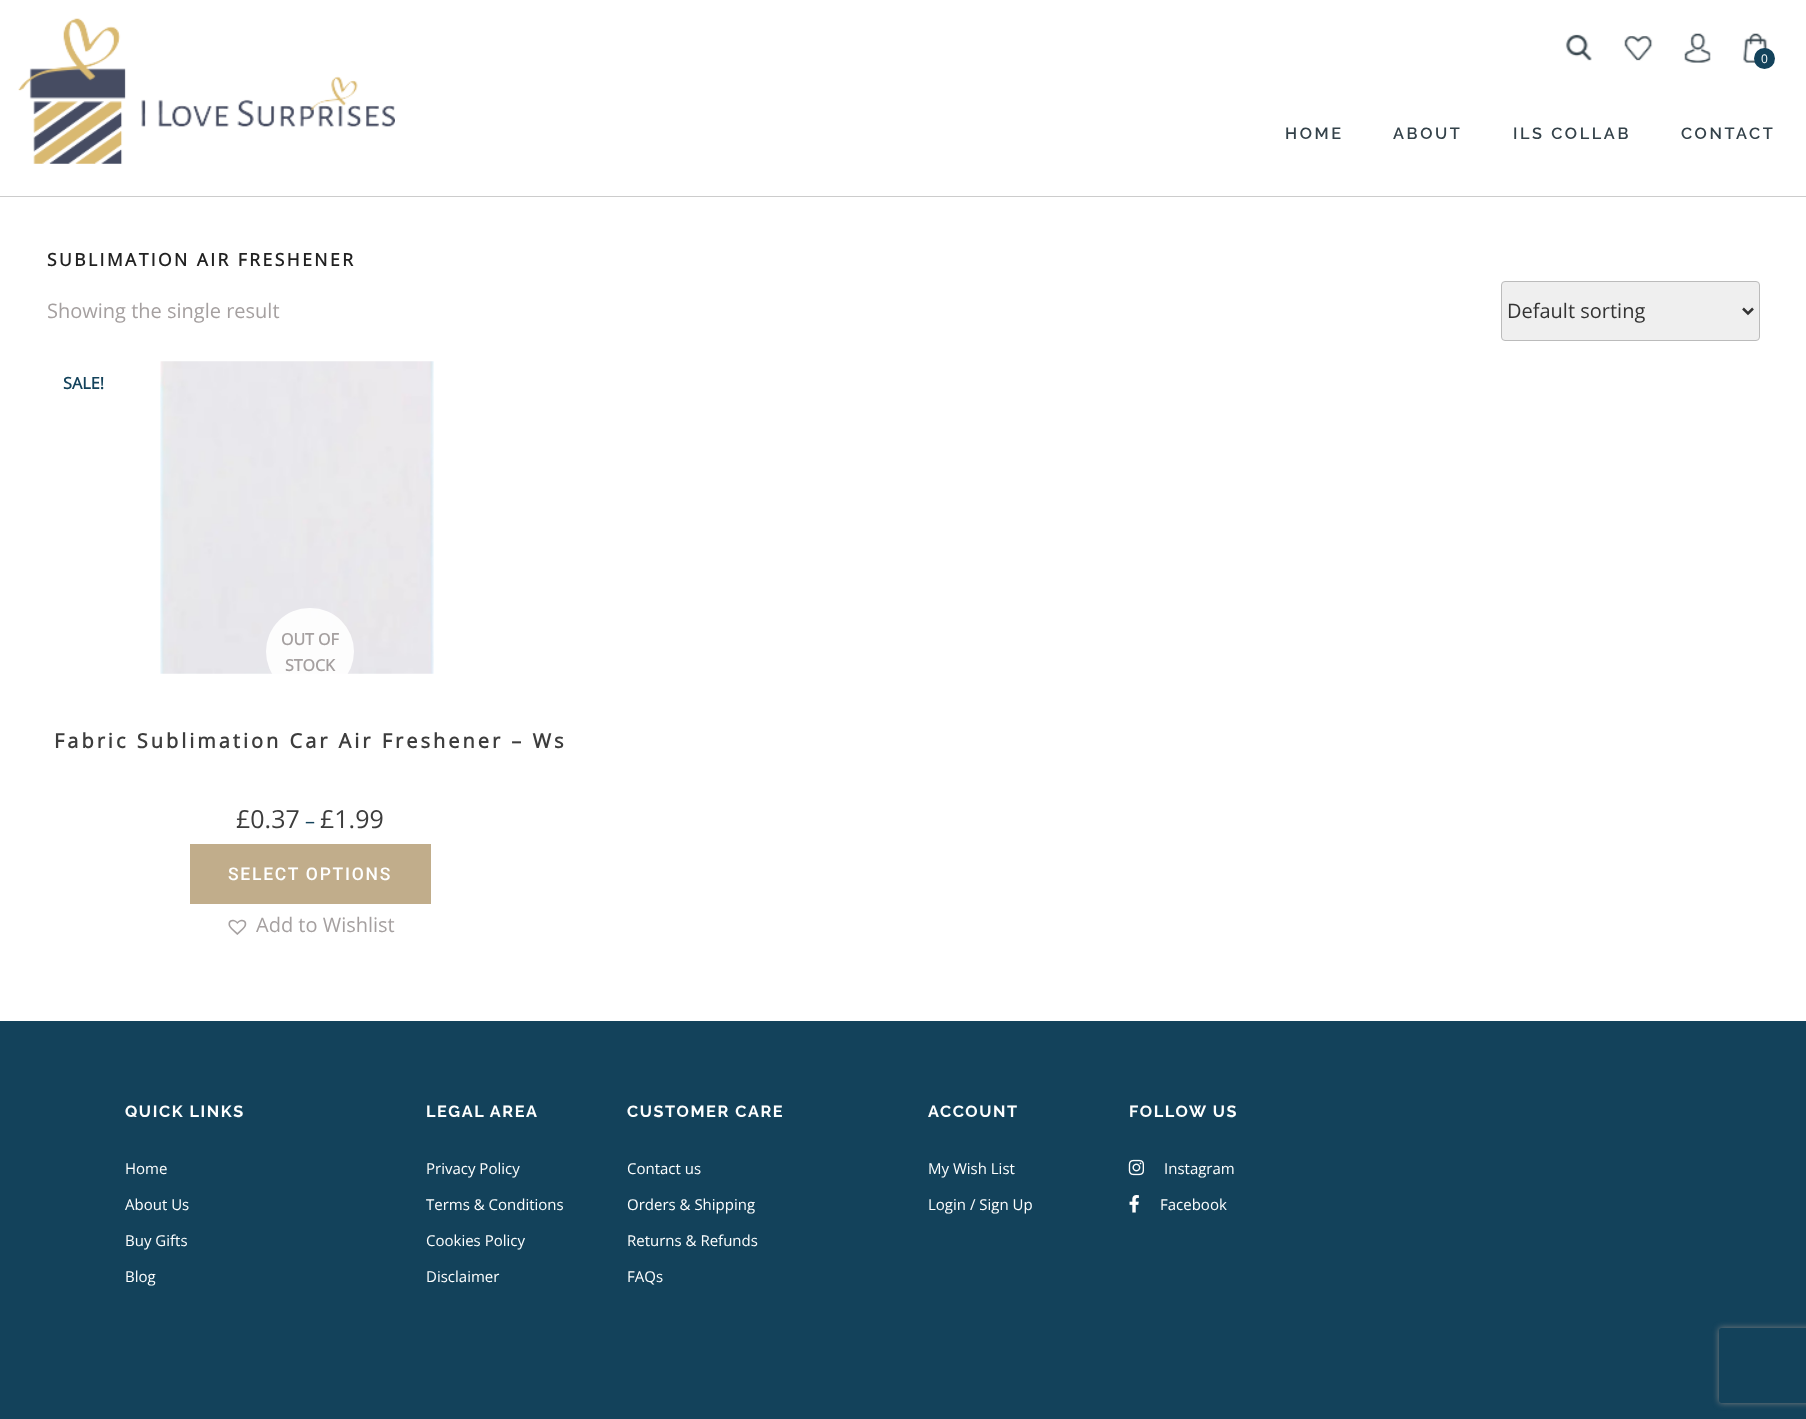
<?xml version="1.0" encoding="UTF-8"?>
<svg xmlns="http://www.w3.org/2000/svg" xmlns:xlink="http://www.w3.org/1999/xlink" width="1806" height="1419">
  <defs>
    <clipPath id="clip1"><path d="M 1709 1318 h 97 v 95 h -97 z m 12.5 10 h 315 c 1.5 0 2.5 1 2.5 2.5 v 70 c 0 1.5 -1 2.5 -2.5 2.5 h -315 c -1.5 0 -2.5 -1 -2.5 -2.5 v -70 c 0 -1.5 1 -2.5 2.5 -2.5 z" clip-rule="evenodd" /></clipPath>
  </defs>
  <rect width="100%" height="100%" fill="#ffffff" />
  <rect y="196" width="1806" height="1" fill="#cccccc" />
  <image x="18" y="18" width="377" height="146" xlink:href="image1.png" />
  <image x="1565" y="34" width="27" height="27" xlink:href="image2.png" />
  <image x="1624" y="36" width="29" height="25" xlink:href="image3.png" />
  <image x="1684" y="33" width="27" height="30" xlink:href="image4.png" />
  <image x="1743" y="33" width="26" height="30" xlink:href="image5.png" />
  <circle cx="1764.5" cy="58.5" r="10.5" fill="#13425b" />
  <rect x="1501.5" y="281.5" width="258" height="59" rx="3.5" fill="#efefef" stroke="#bbbbbb" />
  <path d="M 1743 308.5 l 5 5 l 5 -5" fill="none" stroke="#333333" stroke-width="2.5" />
  <image x="160" y="361" width="274" height="313" xlink:href="image6.png" />
  <rect x="266" y="608" width="88" height="87" rx="43.5" fill="#ffffff" fill-opacity="0.9" />
  <rect x="190" y="844" width="241" height="60" fill="#c1ad8b" />
  <image x="228" y="919" width="19" height="16" xlink:href="image7.png" />
  <rect y="1021" width="1806" height="398" fill="#13425b" />
  <image x="1128" y="1159" width="16" height="17" xlink:href="image8.png" />
  <image x="1129" y="1195" width="10" height="18" xlink:href="image9.png" />
  <g clip-path="url(#clip1)">
    <rect x="1719" y="1328" width="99" height="75" rx="2.5" fill="#808080" filter="blur(3px)" />
  </g>
  <text x="1761" y="63" style="font-family: Open Sans; font-size: 12px; fill: #feffff">0</text>
  <text x="1285" y="139" style="font-family: Raleway; font-size: 16.25px; font-weight: 600; letter-spacing: 2.6px; fill: #34424a">HOME</text>
  <text x="1393" y="139" style="font-family: Raleway; font-size: 16.25px; font-weight: 600; letter-spacing: 2.6px; fill: #34424a">ABOUT</text>
  <text x="1513" y="139" style="font-family: Raleway; font-size: 16.25px; font-weight: 600; letter-spacing: 2.6px; fill: #34424a">ILS COLLAB</text>
  <text x="1681" y="139" style="font-family: Raleway; font-size: 16.25px; font-weight: 600; letter-spacing: 2.6px; fill: #34424a">CONTACT</text>
  <text x="47" y="266" style="font-family: Open Sans; font-size: 17.5px; font-weight: bold; letter-spacing: 2.45px; fill: #222222">SUBLIMATION AIR FRESHENER</text>
  <text x="47" y="318" style="font-family: Open Sans; font-size: 20px; fill: #a5a0a0">Showing the single result</text>
  <text x="1507" y="318" style="font-family: Open Sans; font-size: 20px; fill: #333333">Default sorting</text>
  <text x="63" y="389" style="font-family: Open Sans; font-size: 16.25px; font-weight: bold; fill: #13425b">SALE!</text>
  <text x="54" y="748" style="font-family: Open Sans; font-size: 20px; font-weight: bold; letter-spacing: 3px; fill: #3d3d3d">Fabric Sublimation Car Air Freshener – Ws</text>
  <text x="236" y="828" style="font-family: Open Sans; font-size: 25px; fill: #3d3d3d">£0.37</text>
  <text x="305" y="828" style="font-family: Open Sans; font-size: 20px; fill: #13425b">–</text>
  <text x="320" y="828" style="font-family: Open Sans; font-size: 25px; fill: #3d3d3d">£1.99</text>
  <text x="281" y="645" style="font-family: Open Sans; font-size: 16px; font-weight: bold; fill: #a5a0a0">OUT OF</text>
  <text x="285" y="671" style="font-family: Open Sans; font-size: 16px; font-weight: bold; fill: #a5a0a0">STOCK</text>
  <text x="228" y="880" style="font-family: Roboto; font-size: 17.5px; font-weight: 500; letter-spacing: 1.75px; fill: #feffff">SELECT OPTIONS</text>
  <text x="256" y="932" style="font-family: Open Sans; font-size: 20px; fill: #a5a0a0">Add to Wishlist</text>
  <text x="125" y="1117" style="font-family: Raleway; font-size: 16.25px; font-weight: bold; letter-spacing: 1.6px; fill: #feffff">QUICK LINKS</text>
  <text x="125" y="1174" style="font-family: Open Sans; font-size: 15px; fill: #feffff">Home</text>
  <text x="125" y="1210" style="font-family: Open Sans; font-size: 15px; fill: #feffff">About Us</text>
  <text x="125" y="1246" style="font-family: Open Sans; font-size: 15px; fill: #feffff">Buy Gifts</text>
  <text x="125" y="1282" style="font-family: Open Sans; font-size: 15px; fill: #feffff">Blog</text>
  <text x="426" y="1117" style="font-family: Raleway; font-size: 16.25px; font-weight: bold; letter-spacing: 1.6px; fill: #feffff">LEGAL AREA</text>
  <text x="426" y="1174" style="font-family: Open Sans; font-size: 15px; fill: #feffff">Privacy Policy</text>
  <text x="426" y="1210" style="font-family: Open Sans; font-size: 15px; fill: #feffff">Terms &amp; Conditions</text>
  <text x="426" y="1246" style="font-family: Open Sans; font-size: 15px; fill: #feffff">Cookies Policy</text>
  <text x="426" y="1282" style="font-family: Open Sans; font-size: 15px; fill: #feffff">Disclaimer</text>
  <text x="627" y="1117" style="font-family: Raleway; font-size: 16.25px; font-weight: bold; letter-spacing: 1.6px; fill: #feffff">CUSTOMER CARE</text>
  <text x="627" y="1174" style="font-family: Open Sans; font-size: 15px; fill: #feffff">Contact us</text>
  <text x="627" y="1210" style="font-family: Open Sans; font-size: 15px; fill: #feffff">Orders &amp; Shipping</text>
  <text x="627" y="1246" style="font-family: Open Sans; font-size: 15px; fill: #feffff">Returns &amp; Refunds</text>
  <text x="627" y="1282" style="font-family: Open Sans; font-size: 15px; fill: #feffff">FAQs</text>
  <text x="928" y="1117" style="font-family: Raleway; font-size: 16.25px; font-weight: bold; letter-spacing: 1.6px; fill: #feffff">ACCOUNT</text>
  <text x="928" y="1174" style="font-family: Open Sans; font-size: 15px; fill: #feffff">My Wish List</text>
  <text x="928" y="1210" style="font-family: Open Sans; font-size: 15px; fill: #feffff">Login / Sign Up</text>
  <text x="1129" y="1117" style="font-family: Raleway; font-size: 16.25px; font-weight: bold; letter-spacing: 1.6px; fill: #feffff">FOLLOW US</text>
  <text x="1164" y="1174" style="font-family: Open Sans; font-size: 15px; fill: #feffff">Instagram</text>
  <text x="1160" y="1210" style="font-family: Open Sans; font-size: 15px; fill: #feffff">Facebook</text>
</svg>
